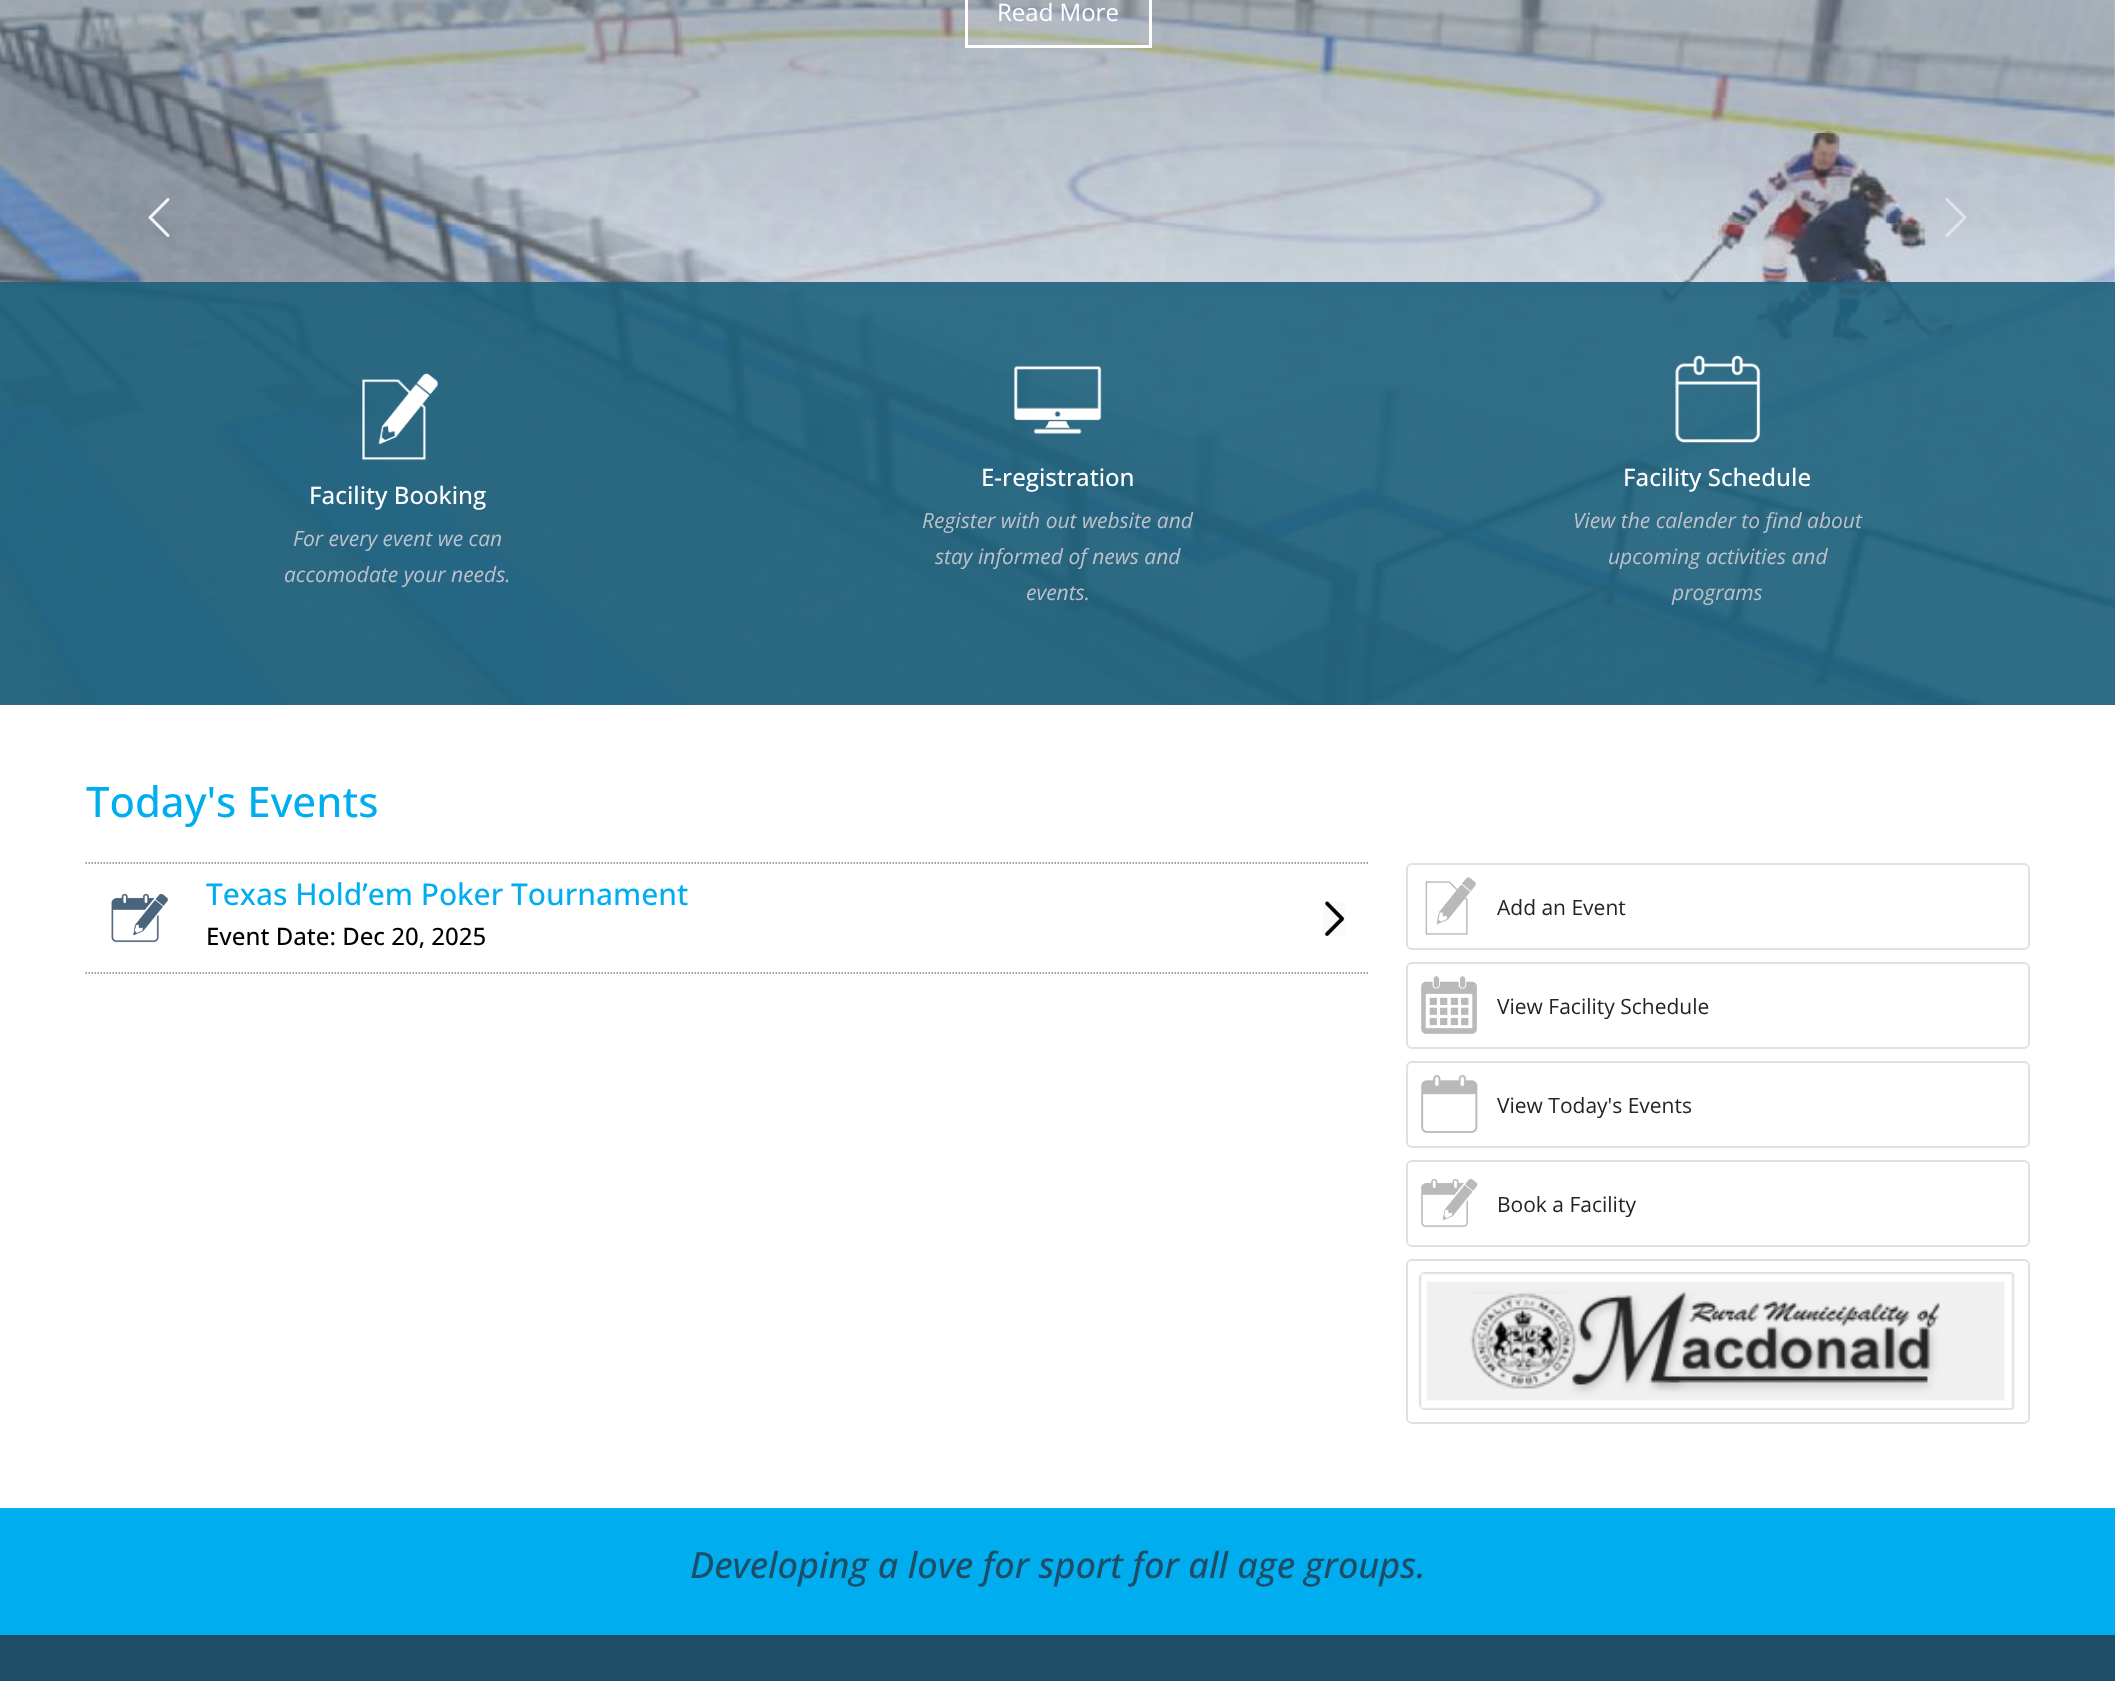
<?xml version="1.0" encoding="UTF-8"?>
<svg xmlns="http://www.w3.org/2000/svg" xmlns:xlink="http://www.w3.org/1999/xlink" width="2115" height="1681">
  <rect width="100%" height="100%" fill="#ffffff" />
  <image x="0" y="0" width="2115" height="705" xlink:href="image1.png" />
  <image x="0" y="0" width="2115" height="295" xlink:href="image2.png" />
  <rect x="966.5" y="-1.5" width="184" height="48" fill="#ffffff" fill-opacity="0.1" stroke="#ffffff" stroke-width="3" />
  <image x="148" y="198" width="22" height="39" xlink:href="image3.png" />
  <image x="1945" y="198" width="22" height="39" xlink:href="image4.png" />
  <rect y="282" width="2115" height="423" fill="#1e607b" fill-opacity="0.9" />
  <image x="362" y="373" width="76" height="88" xlink:href="image5.png" />
  <image x="1013" y="365" width="89" height="69" xlink:href="image6.png" />
  <image x="1675" y="355" width="86" height="88" xlink:href="image7.png" />
  <path d="M 85.5 863 h 1284" fill="none" stroke="#808080" stroke-width="1.5" stroke-dasharray="1.5 1.5" />
  <path d="M 85.5 973 h 1284" fill="none" stroke="#808080" stroke-width="1.5" stroke-dasharray="1.5 1.5" />
  <image x="111" y="893" width="58" height="50" xlink:href="image8.png" />
  <image x="1323" y="901" width="23" height="35" xlink:href="image9.png" />
  <rect x="1407" y="864" width="622" height="85" rx="5" fill="none" stroke="#dee2e6" stroke-width="2" />
  <image x="1425" y="877" width="51" height="58" xlink:href="image10.png" />
  <rect x="1407" y="963" width="622" height="85" rx="5" fill="none" stroke="#dee2e6" stroke-width="2" />
  <image x="1421" y="976" width="56" height="58" xlink:href="image11.png" />
  <rect x="1407" y="1062" width="622" height="85" rx="5" fill="none" stroke="#dee2e6" stroke-width="2" />
  <image x="1421" y="1074" width="57" height="59" xlink:href="image12.png" />
  <rect x="1407" y="1161" width="622" height="85" rx="5" fill="none" stroke="#dee2e6" stroke-width="2" />
  <image x="1421" y="1178" width="57" height="50" xlink:href="image13.png" />
  <rect x="1407" y="1260" width="622" height="163" rx="5" fill="none" stroke="#dee2e6" stroke-width="2" />
  <image x="1419" y="1272" width="596" height="138" xlink:href="image14.png" />
  <rect y="1508" width="2115" height="127" fill="#00adef" />
  <rect y="1635" width="2115" height="46" fill="#1e4e67" />
  <text x="997" y="21" style="font-family: Open Sans; font-size: 24px; fill: #ffffff">Read More</text>
  <text x="309" y="504" style="font-family: Open Sans; font-size: 24px; font-weight: 500; fill: #ffffff">Facility Booking</text>
  <text x="293" y="546" style="font-family: Open Sans; font-size: 21px; font-style: italic; fill: #bcc2cb">For every event we can</text>
  <text x="284" y="582" style="font-family: Open Sans; font-size: 21px; font-style: italic; fill: #bcc2cb">accomodate your needs.</text>
  <text x="981" y="486" style="font-family: Open Sans; font-size: 24px; font-weight: 500; fill: #ffffff">E-registration</text>
  <text x="922" y="528" style="font-family: Open Sans; font-size: 21px; font-style: italic; fill: #bcc2cb">Register with out website and</text>
  <text x="935" y="564" style="font-family: Open Sans; font-size: 21px; font-style: italic; fill: #bcc2cb">stay informed of news and</text>
  <text x="1026" y="600" style="font-family: Open Sans; font-size: 21px; font-style: italic; fill: #bcc2cb">events.</text>
  <text x="1623" y="486" style="font-family: Open Sans; font-size: 24px; font-weight: 500; fill: #ffffff">Facility Schedule</text>
  <text x="1573" y="528" style="font-family: Open Sans; font-size: 21px; font-style: italic; fill: #bcc2cb">View the calender to find about</text>
  <text x="1608" y="564" style="font-family: Open Sans; font-size: 21px; font-style: italic; fill: #bcc2cb">upcoming activities and</text>
  <text x="1672" y="600" style="font-family: Open Sans; font-size: 21px; font-style: italic; fill: #bcc2cb">programs</text>
  <text x="86" y="817" style="font-family: Open Sans; font-size: 42px; font-weight: 500; fill: #00adef">Today's Events</text>
  <text x="206" y="905" style="font-family: Open Sans; font-size: 30px; font-weight: 500; fill: #00adef">Texas Hold’em Poker Tournament</text>
  <text x="206" y="945" style="font-family: Open Sans; font-size: 24px; font-weight: 500; fill: #000000">Event Date: Dec 20, 2025</text>
  <text x="1497" y="915" style="font-family: Open Sans; font-size: 21px; fill: #212529">Add an Event</text>
  <text x="1497" y="1014" style="font-family: Open Sans; font-size: 21px; fill: #212529">View Facility Schedule</text>
  <text x="1497" y="1113" style="font-family: Open Sans; font-size: 21px; fill: #212529">View Today's Events</text>
  <text x="1497" y="1212" style="font-family: Open Sans; font-size: 21px; fill: #212529">Book a Facility</text>
  <text x="690" y="1578" style="font-family: Open Sans; font-size: 36px; font-weight: 500; font-style: italic; fill: #1e4e67">Developing a love for sport for all age groups.</text>
</svg>
